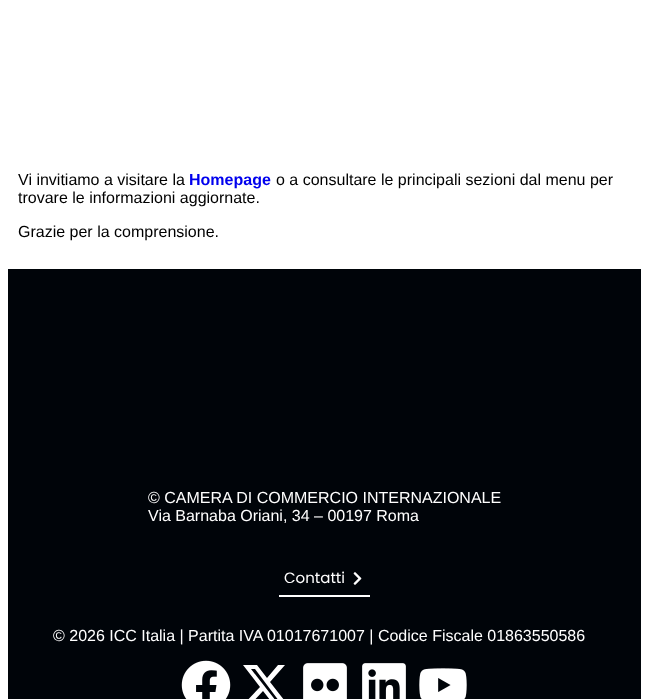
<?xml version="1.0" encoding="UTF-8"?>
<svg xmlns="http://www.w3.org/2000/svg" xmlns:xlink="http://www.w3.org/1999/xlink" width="649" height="699">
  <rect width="100%" height="100%" fill="#ffffff" />
  <rect x="8" y="269" width="633" height="430" fill="#000409" />
  <rect x="279" y="595" width="91" height="2" fill="#ffffff" />
  <image x="353" y="572" width="9" height="13" xlink:href="image1.png" />
  <image x="181" y="660" width="50" height="39" xlink:href="image2.png" />
  <path d="M 278 665 h 7 l -15 17 l 18 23 h -14 l -11 -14 l -13 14 h -7 l 17 -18 l -17 -22 h 14 l 10 13 z m -2 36 h 3 l -24 -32 h -4 z" fill="#ffffff" />
  <image x="303" y="663" width="44" height="36" xlink:href="image3.png" />
  <image x="362" y="663" width="44" height="36" xlink:href="image4.png" />
  <image x="419" y="668" width="48" height="31" xlink:href="image5.png" />
  <text x="18" y="185" style="font-family: Liberation Sans; font-size: 16px; fill: #000000">Vi invitiamo a visitare la</text>
  <text x="189" y="185" style="font-family: Liberation Sans; font-size: 16px; font-weight: bold; fill: #0000ee">Homepage</text>
  <text x="276" y="185" style="font-family: Liberation Sans; font-size: 16px; fill: #000000">o a consultare le principali sezioni dal menu per</text>
  <text x="18" y="203" style="font-family: Liberation Sans; font-size: 16px; fill: #000000">trovare le informazioni aggiornate.</text>
  <text x="18" y="237" style="font-family: Liberation Sans; font-size: 16px; fill: #000000">Grazie per la comprensione.</text>
  <text x="148" y="503" style="font-family: Liberation Sans; font-size: 16px; fill: #ffffff">© CAMERA DI COMMERCIO INTERNAZIONALE</text>
  <text x="148" y="521" style="font-family: Liberation Sans; font-size: 16px; fill: #ffffff">Via Barnaba Oriani, 34 – 00197 Roma</text>
  <text x="284" y="583" style="font-family: Poppins; font-size: 15px; fill: #ffffff">Contatti</text>
  <text x="53" y="641" style="font-family: Liberation Sans; font-size: 16px; fill: #ffffff">© 2026 ICC Italia | Partita IVA 01017671007 | Codice Fiscale 01863550586</text>
</svg>
